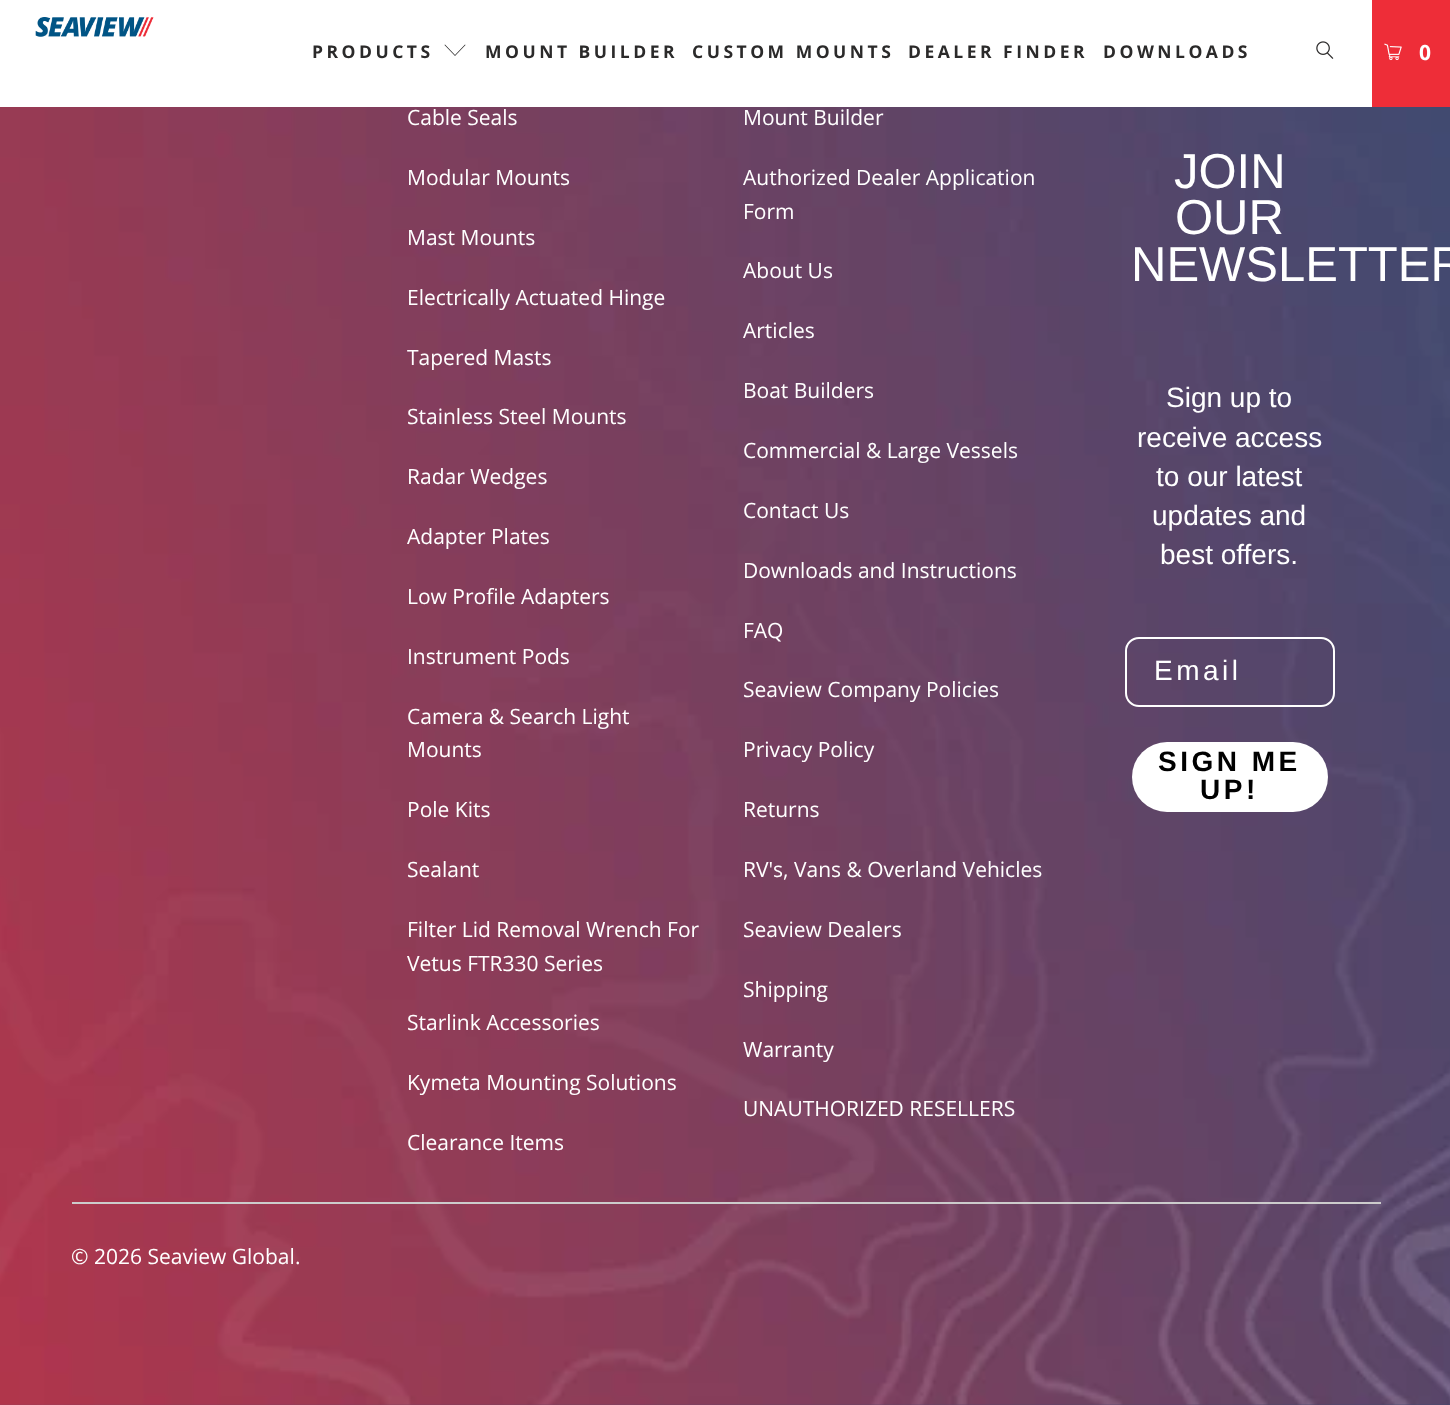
<?xml version="1.0" encoding="UTF-8"?>
<svg xmlns="http://www.w3.org/2000/svg" xmlns:xlink="http://www.w3.org/1999/xlink" width="1450" height="1405">
  <rect width="100%" height="100%" fill="#ffffff" />
  <image x="35" y="17" width="119" height="20" xlink:href="image1.png" />
  <path d="M 455 56 l -10.5 -11 l 0.5 -0.5 l 10 10.5 l 10 -10.5 l 0.5 0.5 z" fill="#2b2a2a" />
  <image x="1316" y="41" width="18" height="18" xlink:href="image2.png" />
  <rect x="1372" width="78" height="107" fill="#ee2d38" />
  <image x="1384" y="43" width="18" height="18" xlink:href="image3.png" />
  <image x="0" y="107" width="1450" height="1298" xlink:href="image4.png" />
  <rect x="1126" y="638" width="208" height="68" rx="13" fill="none" stroke="#ffffff" stroke-width="2" />
  <rect x="1132" y="742" width="196" height="70" rx="35" fill="#ffffff" />
  <rect x="72" y="1202" width="1309" height="2" fill="#cccccc" />
  <text x="312" y="58" style="font-family: Open Sans; font-size: 17.5px; font-weight: bold; letter-spacing: 3.5px; fill: #2b2a2a">PRODUCTS</text>
  <text x="485" y="58" style="font-family: Open Sans; font-size: 17.5px; font-weight: bold; letter-spacing: 3.5px; fill: #2b2a2a">MOUNT BUILDER</text>
  <text x="692" y="58" style="font-family: Open Sans; font-size: 17.5px; font-weight: bold; letter-spacing: 3.5px; fill: #2b2a2a">CUSTOM MOUNTS</text>
  <text x="908" y="58" style="font-family: Open Sans; font-size: 17.5px; font-weight: bold; letter-spacing: 3.5px; fill: #2b2a2a">DEALER FINDER</text>
  <text x="1103" y="58" style="font-family: Open Sans; font-size: 17.5px; font-weight: bold; letter-spacing: 3.5px; fill: #2b2a2a">DOWNLOADS</text>
  <text x="1419" y="60" style="font-family: Open Sans; font-size: 21px; font-weight: bold; letter-spacing: 2px; fill: #ffffff">0</text>
  <text x="407" y="125" style="font-family: Open Sans; font-size: 21px; fill: #ffffff">Cable Seals</text>
  <text x="407" y="185" style="font-family: Open Sans; font-size: 21px; fill: #ffffff">Modular Mounts</text>
  <text x="407" y="245" style="font-family: Open Sans; font-size: 21px; fill: #ffffff">Mast Mounts</text>
  <text x="407" y="305" style="font-family: Open Sans; font-size: 21px; fill: #ffffff">Electrically Actuated Hinge</text>
  <text x="407" y="365" style="font-family: Open Sans; font-size: 21px; fill: #ffffff">Tapered Masts</text>
  <text x="407" y="424" style="font-family: Open Sans; font-size: 21px; fill: #ffffff">Stainless Steel Mounts</text>
  <text x="407" y="484" style="font-family: Open Sans; font-size: 21px; fill: #ffffff">Radar Wedges</text>
  <text x="407" y="544" style="font-family: Open Sans; font-size: 21px; fill: #ffffff">Adapter Plates</text>
  <text x="407" y="604" style="font-family: Open Sans; font-size: 21px; fill: #ffffff">Low Profile Adapters</text>
  <text x="407" y="664" style="font-family: Open Sans; font-size: 21px; fill: #ffffff">Instrument Pods</text>
  <text x="407" y="724" style="font-family: Open Sans; font-size: 21px; fill: #ffffff">Camera &amp; Search Light</text>
  <text x="407" y="757" style="font-family: Open Sans; font-size: 21px; fill: #ffffff">Mounts</text>
  <text x="407" y="817" style="font-family: Open Sans; font-size: 21px; fill: #ffffff">Pole Kits</text>
  <text x="407" y="877" style="font-family: Open Sans; font-size: 21px; fill: #ffffff">Sealant</text>
  <text x="407" y="937" style="font-family: Open Sans; font-size: 21px; fill: #ffffff">Filter Lid Removal Wrench For</text>
  <text x="407" y="971" style="font-family: Open Sans; font-size: 21px; fill: #ffffff">Vetus FTR330 Series</text>
  <text x="407" y="1030" style="font-family: Open Sans; font-size: 21px; fill: #ffffff">Starlink Accessories</text>
  <text x="407" y="1090" style="font-family: Open Sans; font-size: 21px; fill: #ffffff">Kymeta Mounting Solutions</text>
  <text x="407" y="1150" style="font-family: Open Sans; font-size: 21px; fill: #ffffff">Clearance Items</text>
  <text x="743" y="125" style="font-family: Open Sans; font-size: 21px; fill: #ffffff">Mount Builder</text>
  <text x="743" y="185" style="font-family: Open Sans; font-size: 21px; fill: #ffffff">Authorized Dealer Application</text>
  <text x="743" y="219" style="font-family: Open Sans; font-size: 21px; fill: #ffffff">Form</text>
  <text x="743" y="278" style="font-family: Open Sans; font-size: 21px; fill: #ffffff">About Us</text>
  <text x="743" y="338" style="font-family: Open Sans; font-size: 21px; fill: #ffffff">Articles</text>
  <text x="743" y="398" style="font-family: Open Sans; font-size: 21px; fill: #ffffff">Boat Builders</text>
  <text x="743" y="458" style="font-family: Open Sans; font-size: 21px; fill: #ffffff">Commercial &amp; Large Vessels</text>
  <text x="743" y="518" style="font-family: Open Sans; font-size: 21px; fill: #ffffff">Contact Us</text>
  <text x="743" y="578" style="font-family: Open Sans; font-size: 21px; fill: #ffffff">Downloads and Instructions</text>
  <text x="743" y="638" style="font-family: Open Sans; font-size: 21px; fill: #ffffff">FAQ</text>
  <text x="743" y="697" style="font-family: Open Sans; font-size: 21px; fill: #ffffff">Seaview Company Policies</text>
  <text x="743" y="757" style="font-family: Open Sans; font-size: 21px; fill: #ffffff">Privacy Policy</text>
  <text x="743" y="817" style="font-family: Open Sans; font-size: 21px; fill: #ffffff">Returns</text>
  <text x="743" y="877" style="font-family: Open Sans; font-size: 21px; fill: #ffffff">RV's, Vans &amp; Overland Vehicles</text>
  <text x="743" y="937" style="font-family: Open Sans; font-size: 21px; fill: #ffffff">Seaview Dealers</text>
  <text x="743" y="997" style="font-family: Open Sans; font-size: 21px; fill: #ffffff">Shipping</text>
  <text x="743" y="1057" style="font-family: Open Sans; font-size: 21px; fill: #ffffff">Warranty</text>
  <text x="743" y="1116" style="font-family: Open Sans; font-size: 21px; fill: #ffffff">UNAUTHORIZED RESELLERS</text>
  <text x="1174" y="188" style="font-family: Liberation Sans; font-size: 49px; fill: #ffffff">JOIN</text>
  <text x="1175" y="234" style="font-family: Liberation Sans; font-size: 49px; fill: #ffffff">OUR</text>
  <text x="1131" y="281" style="font-family: Liberation Sans; font-size: 49px; fill: #ffffff">NEWSLETTER</text>
  <text x="1166" y="407" style="font-family: Liberation Sans; font-size: 28px; fill: #ffffff">Sign up to</text>
  <text x="1137" y="447" style="font-family: Liberation Sans; font-size: 28px; fill: #ffffff">receive access</text>
  <text x="1156" y="486" style="font-family: Liberation Sans; font-size: 28px; fill: #ffffff">to our latest</text>
  <text x="1152" y="525" style="font-family: Liberation Sans; font-size: 28px; fill: #ffffff">updates and</text>
  <text x="1160" y="564" style="font-family: Liberation Sans; font-size: 28px; fill: #ffffff">best offers.</text>
  <text x="1154" y="680" style="font-family: Liberation Sans; font-size: 28px; letter-spacing: 3.5px; fill: #ffffff">Email</text>
  <text x="1158" y="771" style="font-family: Liberation Sans; font-size: 28px; font-weight: bold; letter-spacing: 3.5px; fill: #000000">SIGN ME</text>
  <text x="1200" y="799" style="font-family: Liberation Sans; font-size: 28px; font-weight: bold; letter-spacing: 3.5px; fill: #000000">UP!</text>
  <text x="71" y="1264" style="font-family: Open Sans; font-size: 21px; fill: #ffffff">© 2026 Seaview Global</text>
  <text x="295" y="1264" style="font-family: Open Sans; font-size: 21px; fill: #ffffff">.</text>
</svg>
